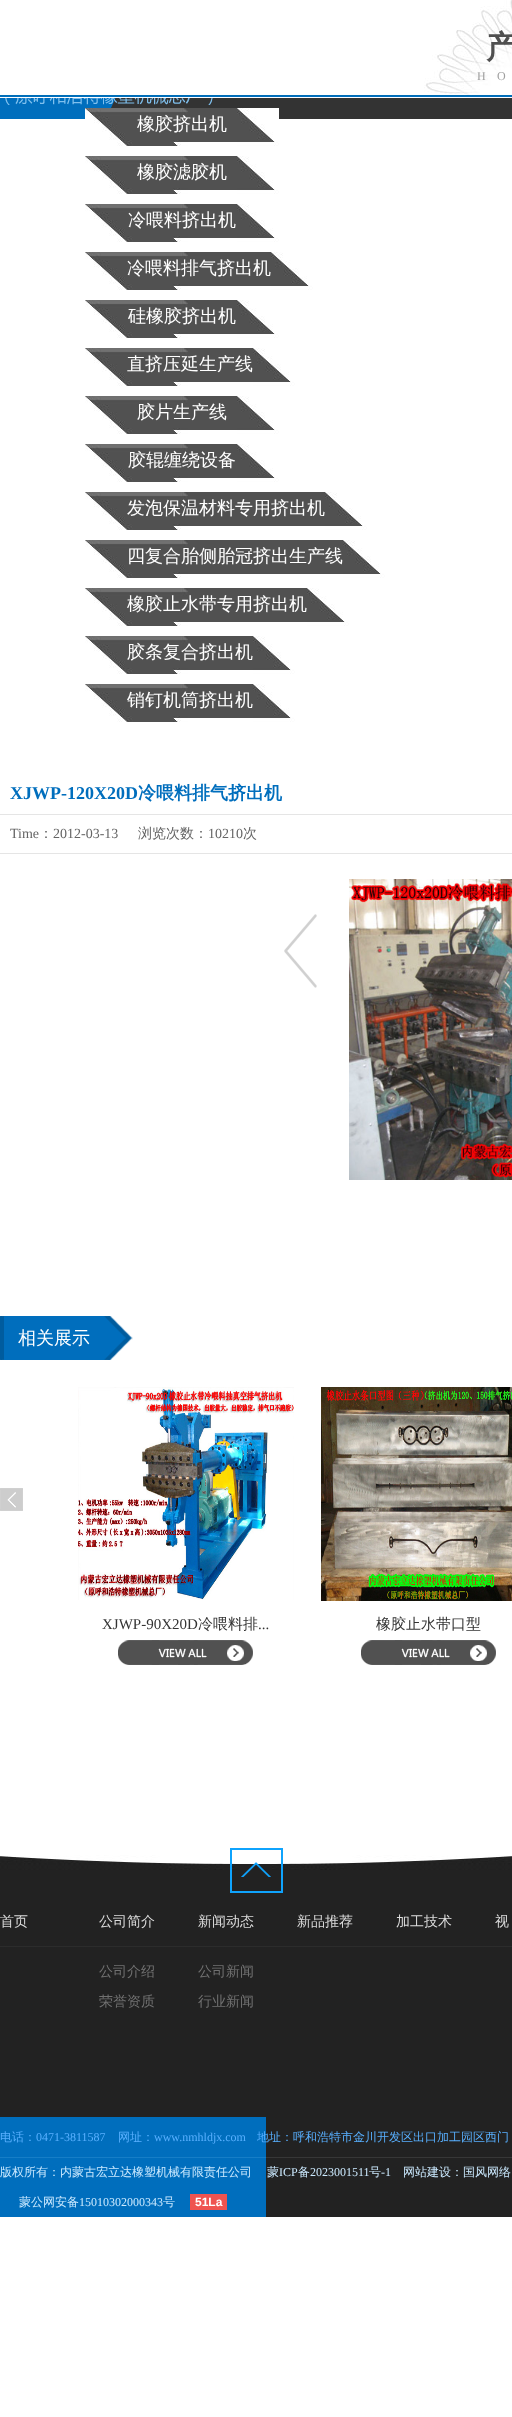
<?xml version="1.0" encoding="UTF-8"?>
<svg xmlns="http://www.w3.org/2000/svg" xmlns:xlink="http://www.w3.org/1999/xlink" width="512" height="2417">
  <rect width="100%" height="100%" fill="#ffffff" />
  <image x="0" y="0" width="512" height="98" xlink:href="image1.png" />
  <image x="0" y="98" width="512" height="21" xlink:href="image11.png" />
  <rect x="188" y="108" width="49" height="34" fill="#515151" />
  <image x="85" y="108" width="103" height="38" xlink:href="image2.png" />
  <image x="237" y="108" width="42" height="38" xlink:href="image3.png" />
  <rect x="188" y="156" width="49" height="34" fill="#515151" />
  <image x="85" y="156" width="103" height="38" xlink:href="image2.png" />
  <image x="237" y="156" width="42" height="38" xlink:href="image3.png" />
  <rect x="188" y="204" width="49" height="34" fill="#515151" />
  <image x="85" y="204" width="103" height="38" xlink:href="image2.png" />
  <image x="237" y="204" width="42" height="38" xlink:href="image3.png" />
  <rect x="188" y="252" width="83" height="34" fill="#515151" />
  <image x="85" y="252" width="103" height="38" xlink:href="image2.png" />
  <image x="271" y="252" width="42" height="38" xlink:href="image3.png" />
  <rect x="188" y="300" width="49" height="34" fill="#515151" />
  <image x="85" y="300" width="103" height="38" xlink:href="image2.png" />
  <image x="237" y="300" width="42" height="38" xlink:href="image3.png" />
  <rect x="188" y="348" width="65" height="34" fill="#515151" />
  <image x="85" y="348" width="103" height="38" xlink:href="image2.png" />
  <image x="253" y="348" width="42" height="38" xlink:href="image3.png" />
  <rect x="188" y="396" width="49" height="34" fill="#515151" />
  <image x="85" y="396" width="103" height="38" xlink:href="image2.png" />
  <image x="237" y="396" width="42" height="38" xlink:href="image3.png" />
  <rect x="188" y="444" width="49" height="34" fill="#515151" />
  <image x="85" y="444" width="103" height="38" xlink:href="image2.png" />
  <image x="237" y="444" width="42" height="38" xlink:href="image3.png" />
  <rect x="188" y="492" width="137" height="34" fill="#515151" />
  <image x="85" y="492" width="103" height="38" xlink:href="image2.png" />
  <image x="325" y="492" width="42" height="38" xlink:href="image3.png" />
  <rect x="188" y="540" width="155" height="34" fill="#515151" />
  <image x="85" y="540" width="103" height="38" xlink:href="image2.png" />
  <image x="343" y="540" width="42" height="38" xlink:href="image3.png" />
  <rect x="188" y="588" width="119" height="34" fill="#515151" />
  <image x="85" y="588" width="103" height="38" xlink:href="image2.png" />
  <image x="307" y="588" width="42" height="38" xlink:href="image3.png" />
  <rect x="188" y="636" width="65" height="34" fill="#515151" />
  <image x="85" y="636" width="103" height="38" xlink:href="image2.png" />
  <image x="253" y="636" width="42" height="38" xlink:href="image3.png" />
  <rect x="188" y="684" width="65" height="34" fill="#515151" />
  <image x="85" y="684" width="103" height="38" xlink:href="image2.png" />
  <image x="253" y="684" width="42" height="38" xlink:href="image3.png" />
  <rect y="814" width="512" height="1" fill="#e5e5e5" />
  <rect y="853" width="512" height="1" fill="#e5e5e5" />
  <image x="284" y="914" width="33" height="74" xlink:href="image4.png" />
  <image x="349" y="879" width="163" height="301" xlink:href="image5.png" />
  <image x="0" y="1316" width="133" height="44" xlink:href="image6.png" />
  <image x="0" y="1488" width="23" height="23" xlink:href="image7.png" />
  <image x="78" y="1387" width="216" height="213" xlink:href="image8.png" />
  <image x="118" y="1640" width="135" height="25" xlink:href="image9.png" />
  <image x="321" y="1387" width="191" height="214" xlink:href="image10.png" />
  <image x="361" y="1640" width="135" height="25" xlink:href="image9.png" />
  <image x="5" y="98" width="208" height="7" xlink:href="image12.png" />
  <rect y="1870" width="512" height="347" fill="#222222" />
  <image x="0" y="1767" width="512" height="103" xlink:href="image13.png" />
  <image x="230" y="1848" width="53" height="45" xlink:href="image14.png" />
  <rect y="1946" width="512" height="1" fill="#2c2c2c" />
  <rect y="2117" width="266" height="100" fill="#006ebd" />
  <rect x="190" y="2194" width="37" height="16" fill="#ef5350" />
  <image x="0" y="2157" width="512" height="1" xlink:href="image15.png" />
  <text x="486" y="58" style="font-family: WenQuanYi Zen Hei; font-size: 32px; font-weight: bold; fill: #4f4f4f">产</text>
  <text x="477" y="80" style="font-family: Liberation Serif; font-size: 12px; fill: #9e9e9e">H</text>
  <text x="497" y="80" style="font-family: Liberation Serif; font-size: 12px; fill: #9e9e9e">O</text>
  <text x="137" y="130" style="font-family: WenQuanYi Zen Hei; font-size: 18px; font-weight: 500; fill: #ffffff">橡胶挤出机</text>
  <text x="137" y="178" style="font-family: WenQuanYi Zen Hei; font-size: 18px; font-weight: 500; fill: #ffffff">橡胶滤胶机</text>
  <text x="128" y="226" style="font-family: WenQuanYi Zen Hei; font-size: 18px; font-weight: 500; fill: #ffffff">冷喂料挤出机</text>
  <text x="127" y="274" style="font-family: WenQuanYi Zen Hei; font-size: 18px; font-weight: 500; fill: #ffffff">冷喂料排气挤出机</text>
  <text x="128" y="322" style="font-family: WenQuanYi Zen Hei; font-size: 18px; font-weight: 500; fill: #ffffff">硅橡胶挤出机</text>
  <text x="127" y="370" style="font-family: WenQuanYi Zen Hei; font-size: 18px; font-weight: 500; fill: #ffffff">直挤压延生产线</text>
  <text x="137" y="418" style="font-family: WenQuanYi Zen Hei; font-size: 18px; font-weight: 500; fill: #ffffff">胶片生产线</text>
  <text x="128" y="466" style="font-family: WenQuanYi Zen Hei; font-size: 18px; font-weight: 500; fill: #ffffff">胶辊缠绕设备</text>
  <text x="127" y="514" style="font-family: WenQuanYi Zen Hei; font-size: 18px; font-weight: 500; fill: #ffffff">发泡保温材料专用挤出机</text>
  <text x="127" y="562" style="font-family: WenQuanYi Zen Hei; font-size: 18px; font-weight: 500; fill: #ffffff">四复合胎侧胎冠挤出生产线</text>
  <text x="127" y="610" style="font-family: WenQuanYi Zen Hei; font-size: 18px; font-weight: 500; fill: #ffffff">橡胶止水带专用挤出机</text>
  <text x="127" y="658" style="font-family: WenQuanYi Zen Hei; font-size: 18px; font-weight: 500; fill: #ffffff">胶条复合挤出机</text>
  <text x="127" y="706" style="font-family: WenQuanYi Zen Hei; font-size: 18px; font-weight: 500; fill: #ffffff">销钉机筒挤出机</text>
  <text x="10" y="799" style="font-family: Liberation Serif; font-size: 18px; font-weight: bold; fill: #006ebd">XJWP-120X20D</text>
  <text x="138" y="799" style="font-family: WenQuanYi Zen Hei; font-size: 18px; font-weight: bold; fill: #006ebd">冷喂料排气挤出机</text>
  <text x="10" y="838" style="font-family: Liberation Serif; font-size: 14px; fill: #646464">Time</text>
  <text x="39" y="838" style="font-family: WenQuanYi Zen Hei; font-size: 14px; font-weight: 500; fill: #646464">：</text>
  <text x="53" y="838" style="font-family: Liberation Serif; font-size: 14px; fill: #646464">2012-03-13</text>
  <text x="138" y="838" style="font-family: WenQuanYi Zen Hei; font-size: 14px; font-weight: 500; fill: #646464">浏览次数：</text>
  <text x="208" y="838" style="font-family: Liberation Serif; font-size: 14px; fill: #646464">10210</text>
  <text x="243" y="838" style="font-family: WenQuanYi Zen Hei; font-size: 14px; font-weight: 500; fill: #646464">次</text>
  <text x="18" y="1344" style="font-family: WenQuanYi Zen Hei; font-size: 18px; font-weight: 500; fill: #ffffff">相关展示</text>
  <text x="102" y="1629" style="font-family: Liberation Serif; font-size: 15px; fill: #333333">XJWP-90X20D</text>
  <text x="198" y="1629" style="font-family: WenQuanYi Zen Hei; font-size: 15px; font-weight: 500; fill: #333333">冷喂料排</text>
  <text x="258" y="1629" style="font-family: Liberation Serif; font-size: 15px; fill: #333333">...</text>
  <text x="376" y="1629" style="font-family: WenQuanYi Zen Hei; font-size: 15px; font-weight: 500; fill: #333333">橡胶止水带口型</text>
  <text x="0" y="1926" style="font-family: WenQuanYi Zen Hei; font-size: 14px; font-weight: 500; fill: #dcdcdc">首页</text>
  <text x="99" y="1926" style="font-family: WenQuanYi Zen Hei; font-size: 14px; font-weight: 500; fill: #dcdcdc">公司简介</text>
  <text x="198" y="1926" style="font-family: WenQuanYi Zen Hei; font-size: 14px; font-weight: 500; fill: #dcdcdc">新闻动态</text>
  <text x="297" y="1926" style="font-family: WenQuanYi Zen Hei; font-size: 14px; font-weight: 500; fill: #dcdcdc">新品推荐</text>
  <text x="396" y="1926" style="font-family: WenQuanYi Zen Hei; font-size: 14px; font-weight: 500; fill: #dcdcdc">加工技术</text>
  <text x="495" y="1926" style="font-family: WenQuanYi Zen Hei; font-size: 14px; font-weight: 500; fill: #dcdcdc">视</text>
  <text x="99" y="1976" style="font-family: WenQuanYi Zen Hei; font-size: 14px; font-weight: 500; fill: #717171">公司介绍</text>
  <text x="99" y="2006" style="font-family: WenQuanYi Zen Hei; font-size: 14px; font-weight: 500; fill: #717171">荣誉资质</text>
  <text x="198" y="1976" style="font-family: WenQuanYi Zen Hei; font-size: 14px; font-weight: 500; fill: #717171">公司新闻</text>
  <text x="198" y="2006" style="font-family: WenQuanYi Zen Hei; font-size: 14px; font-weight: 500; fill: #717171">行业新闻</text>
  <text x="0" y="2141" style="font-family: WenQuanYi Zen Hei; font-size: 12px; font-weight: 500; fill: #58b0ff">电话：</text>
  <text x="36" y="2141" style="font-family: Liberation Serif; font-size: 12px; fill: #58b0ff">0471-3811587</text>
  <text x="118" y="2141" style="font-family: WenQuanYi Zen Hei; font-size: 12px; font-weight: 500; fill: #58b0ff">网址：</text>
  <text x="154" y="2141" style="font-family: Liberation Serif; font-size: 12px; fill: #58b0ff">www.nmhldjx.com</text>
  <text x="257" y="2141" style="font-family: WenQuanYi Zen Hei; font-size: 12px; font-weight: 500; fill: #58b0ff">地址：呼和浩特市金川开发区出口加工园区西门</text>
  <text x="0" y="2176" style="font-family: WenQuanYi Zen Hei; font-size: 12px; font-weight: 500; fill: #cceaff">版权所有：内蒙古宏立达橡塑机械有限责任公司</text>
  <text x="267" y="2176" style="font-family: WenQuanYi Zen Hei; font-size: 12px; font-weight: 500; fill: #cceaff">蒙</text>
  <text x="279" y="2176" style="font-family: Liberation Serif; font-size: 12px; fill: #cceaff">ICP</text>
  <text x="298" y="2176" style="font-family: WenQuanYi Zen Hei; font-size: 12px; font-weight: 500; fill: #cceaff">备</text>
  <text x="310" y="2176" style="font-family: Liberation Serif; font-size: 12px; fill: #cceaff">2023001511</text>
  <text x="369" y="2176" style="font-family: WenQuanYi Zen Hei; font-size: 12px; font-weight: 500; fill: #cceaff">号</text>
  <text x="381" y="2176" style="font-family: Liberation Serif; font-size: 12px; fill: #cceaff">-1</text>
  <text x="403" y="2176" style="font-family: WenQuanYi Zen Hei; font-size: 12px; font-weight: 500; fill: #cceaff">网站建设：国风网络</text>
  <text x="19" y="2206" style="font-family: WenQuanYi Zen Hei; font-size: 12px; font-weight: 500; fill: #cceaff">蒙公网安备</text>
  <text x="79" y="2206" style="font-family: Liberation Serif; font-size: 12px; fill: #cceaff">15010302000343</text>
  <text x="163" y="2206" style="font-family: WenQuanYi Zen Hei; font-size: 12px; font-weight: 500; fill: #cceaff">号</text>
  <text x="195" y="2206" style="font-family: Liberation Sans; font-size: 12px; font-weight: bold; fill: #ffffff">51La</text>
</svg>
